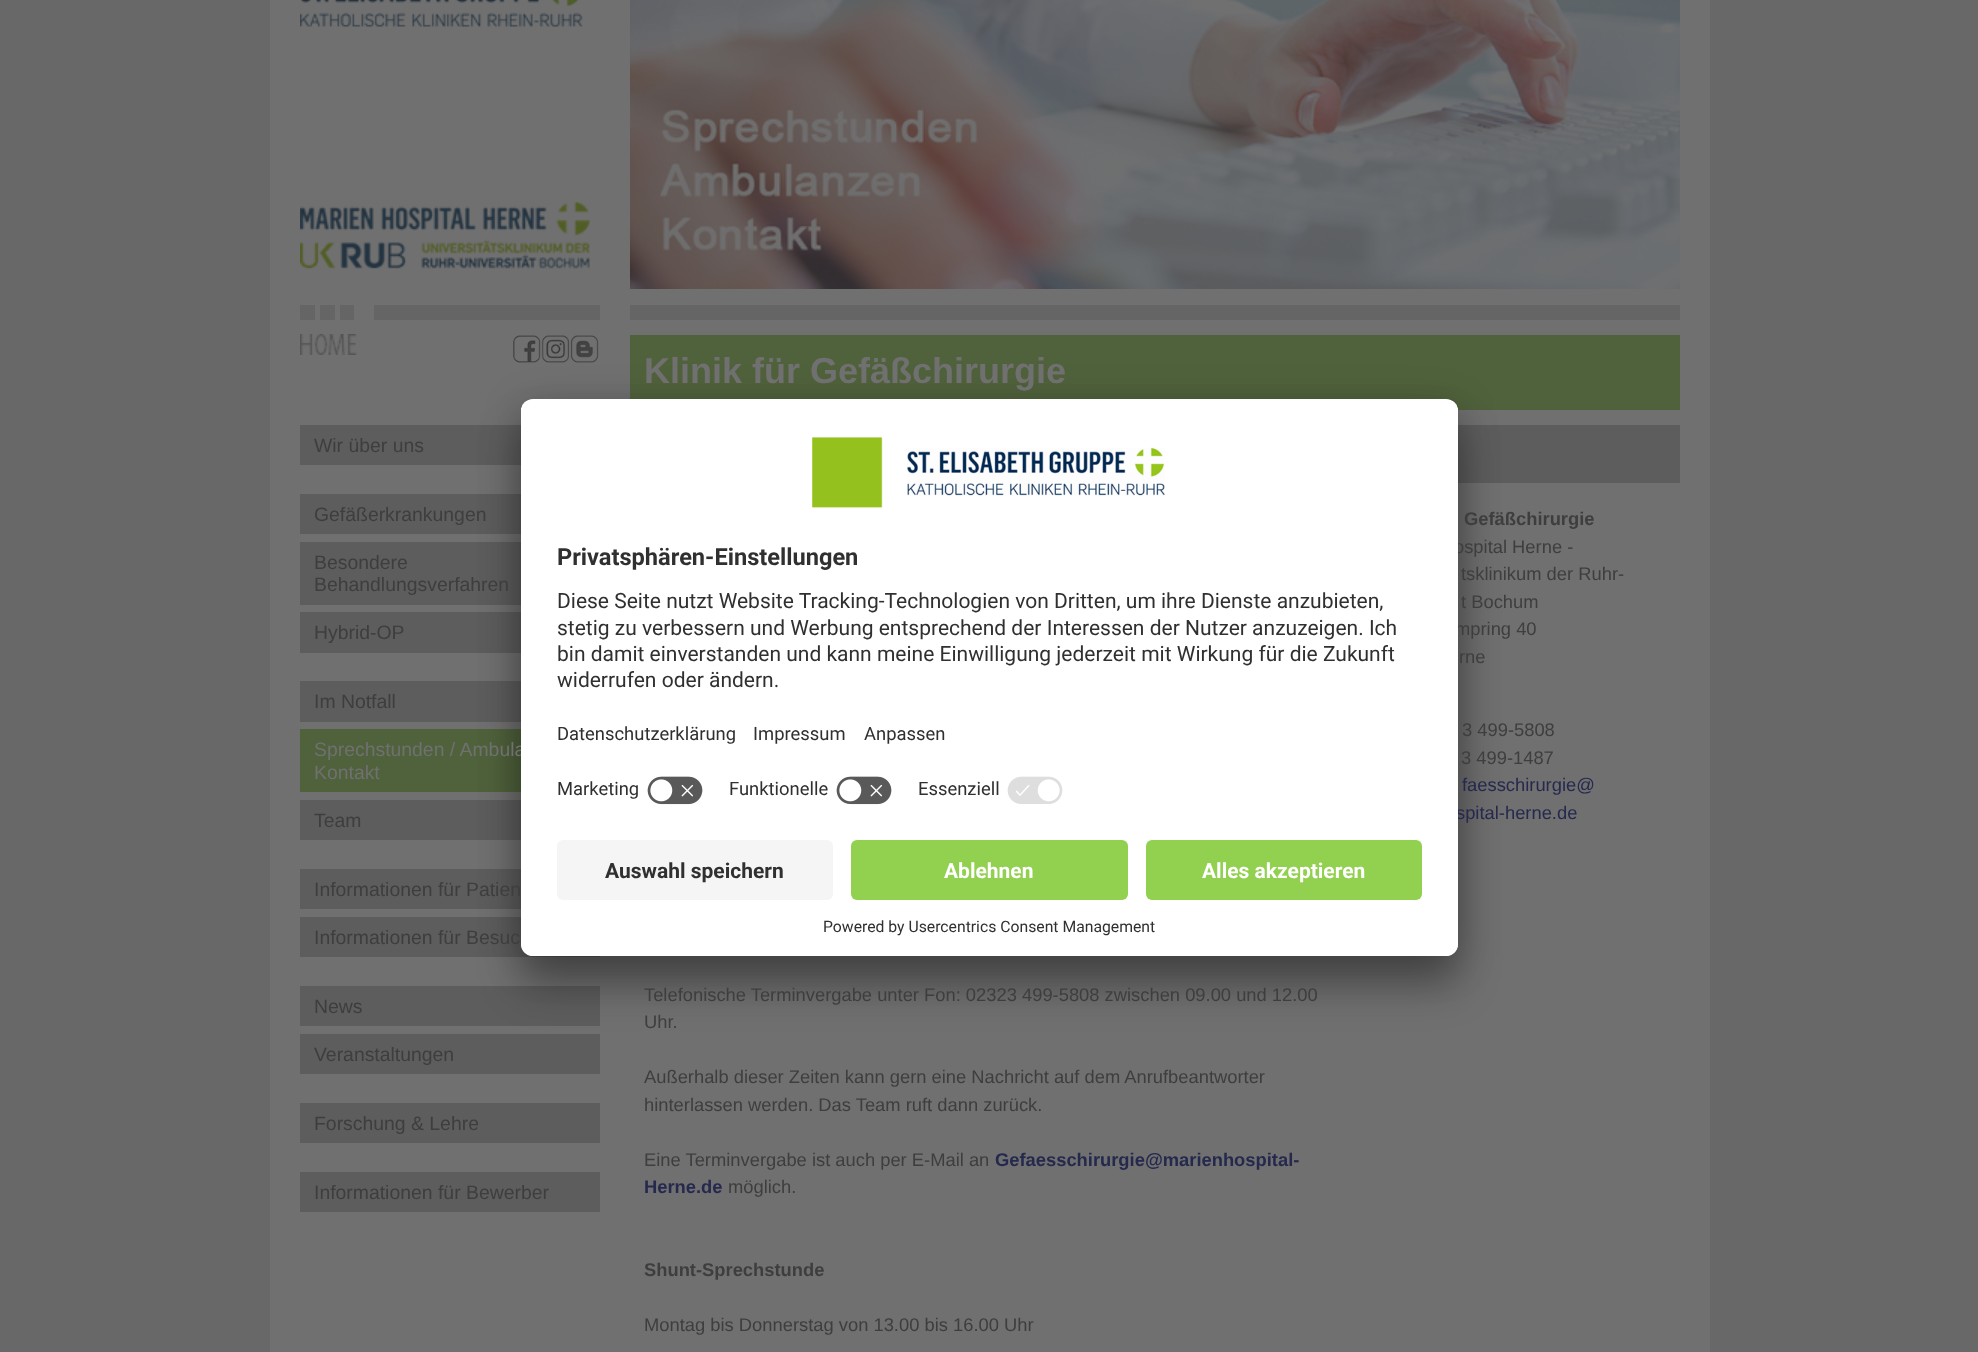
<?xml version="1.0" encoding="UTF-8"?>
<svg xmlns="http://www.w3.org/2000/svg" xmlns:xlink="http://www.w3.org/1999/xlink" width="1978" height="1352">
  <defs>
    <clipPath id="clip1"><rect x="521" y="399" width="937" height="557" rx="12" /></clipPath>
    <clipPath id="clip2"><path d="M 533 399 h 913 c 6.5 0 12 5.5 12 12 v 417 h -937 v -417 c 0 -6.5 5.5 -12 12 -12 z" /></clipPath>
  </defs>
  <rect width="100%" height="100%" fill="#686868" />
  <rect x="270" width="1440" height="1352" fill="#707070" />
  <image x="300" y="0" width="283" height="27" xlink:href="image1.png" />
  <image x="300" y="202" width="290" height="67" xlink:href="image2.png" />
  <rect x="300" y="305" width="300" height="15" fill="#656565" />
  <rect x="315" y="305" width="5" height="15" fill="#707070" />
  <rect x="335" y="305" width="5" height="15" fill="#707070" />
  <rect x="354" y="305" width="20" height="15" fill="#707070" />
  <image x="300" y="334" width="57" height="21" xlink:href="image3.png" />
  <image x="513" y="335" width="86" height="28" xlink:href="image4.png" />
  <image x="630" y="0" width="1050" height="289" xlink:href="image5.png" />
  <rect x="630" y="305" width="1050" height="15" fill="#656565" />
  <rect x="630" y="335" width="1050" height="75" fill="#50623c" />
  <rect x="300" y="425" width="221" height="40" fill="#5d5d5d" />
  <rect x="300" y="494" width="221" height="40" fill="#5d5d5d" />
  <rect x="300" y="542" width="221" height="63" fill="#5d5d5d" />
  <rect x="300" y="612" width="221" height="41" fill="#5d5d5d" />
  <rect x="300" y="681" width="221" height="41" fill="#5d5d5d" />
  <rect x="300" y="729" width="221" height="63" fill="#50623c" />
  <rect x="300" y="800" width="221" height="40" fill="#5d5d5d" />
  <rect x="300" y="869" width="221" height="40" fill="#5d5d5d" />
  <rect x="300" y="917" width="300" height="40" fill="#5d5d5d" />
  <rect x="300" y="986" width="300" height="40" fill="#5d5d5d" />
  <rect x="300" y="1034" width="300" height="40" fill="#5d5d5d" />
  <rect x="300" y="1103" width="300" height="40" fill="#5d5d5d" />
  <rect x="300" y="1172" width="300" height="40" fill="#5d5d5d" />
  <rect x="1458" y="425" width="222" height="58" fill="#5d5d5d" />
  <rect x="521" y="429" width="937" height="557" rx="12" fill="#000000" fill-opacity="0.3" filter="blur(21px)" />
  <rect x="521" y="407" width="937" height="556" rx="12" fill="#000000" fill-opacity="0.22" filter="blur(19.5px)" />
  <text x="644" y="383" style="font-family: Liberation Sans; font-size: 36px; font-weight: bold; fill: #707070">Klinik für Gefäßchirurgie</text>
  <text x="314" y="452" style="font-family: Liberation Sans; font-size: 19.4px; fill: #3e3e3e">Wir über uns</text>
  <text x="314" y="521" style="font-family: Liberation Sans; font-size: 19.4px; fill: #3e3e3e">Gefäßerkrankungen</text>
  <text x="314" y="569" style="font-family: Liberation Sans; font-size: 19.4px; fill: #3e3e3e">Besondere</text>
  <text x="314" y="591" style="font-family: Liberation Sans; font-size: 19.4px; fill: #3e3e3e">Behandlungsverfahren</text>
  <text x="314" y="639" style="font-family: Liberation Sans; font-size: 19.4px; fill: #3e3e3e">Hybrid-OP</text>
  <text x="314" y="708" style="font-family: Liberation Sans; font-size: 19.4px; fill: #3e3e3e">Im Notfall</text>
  <text x="314" y="756" style="font-family: Liberation Sans; font-size: 19.4px; fill: #707070">Sprechstunden / Ambula</text>
  <text x="314" y="779" style="font-family: Liberation Sans; font-size: 19.4px; fill: #707070">Kontakt</text>
  <text x="314" y="827" style="font-family: Liberation Sans; font-size: 19.4px; fill: #3e3e3e">Team</text>
  <text x="314" y="896" style="font-family: Liberation Sans; font-size: 19.4px; fill: #3e3e3e">Informationen für Patien</text>
  <text x="314" y="944" style="font-family: Liberation Sans; font-size: 19.4px; fill: #3e3e3e">Informationen für Besuc</text>
  <text x="314" y="1013" style="font-family: Liberation Sans; font-size: 19.4px; fill: #3e3e3e">News</text>
  <text x="314" y="1061" style="font-family: Liberation Sans; font-size: 19.4px; fill: #3e3e3e">Veranstaltungen</text>
  <text x="314" y="1130" style="font-family: Liberation Sans; font-size: 19.4px; fill: #3e3e3e">Forschung &amp; Lehre</text>
  <text x="314" y="1199" style="font-family: Liberation Sans; font-size: 19.4px; fill: #3e3e3e">Informationen für Bewerber</text>
  <text x="1464" y="525" style="font-family: Liberation Sans; font-size: 18.35px; font-weight: bold; fill: #3e3e3e">Gefäßchirurgie</text>
  <text x="1454" y="553" style="font-family: Liberation Sans; font-size: 18.35px; fill: #3e3e3e">ospital Herne -</text>
  <text x="1461" y="580" style="font-family: Liberation Sans; font-size: 18.35px; fill: #3e3e3e">tsklinikum der Ruhr-</text>
  <text x="1461" y="608" style="font-family: Liberation Sans; font-size: 18.35px; fill: #3e3e3e">t Bochum</text>
  <text x="1455" y="635" style="font-family: Liberation Sans; font-size: 18.35px; fill: #3e3e3e">mpring 40</text>
  <text x="1459" y="663" style="font-family: Liberation Sans; font-size: 18.35px; fill: #3e3e3e">rne</text>
  <text x="1462" y="736" style="font-family: Liberation Sans; font-size: 18.35px; fill: #3e3e3e">3 499-5808</text>
  <text x="1461" y="764" style="font-family: Liberation Sans; font-size: 18.35px; fill: #3e3e3e">3 499-1487</text>
  <text x="1462" y="791" style="font-family: Liberation Sans; font-size: 18.35px; fill: #25294d">faesschirurgie@</text>
  <text x="1456" y="819" style="font-family: Liberation Sans; font-size: 18.35px; fill: #25294d">spital-herne.de</text>
  <text x="644" y="1001" style="font-family: Liberation Sans; font-size: 18.35px; fill: #3e3e3e">Telefonische Terminvergabe unter Fon: 02323 499-5808 zwischen 09.00 und 12.00</text>
  <text x="644" y="1028" style="font-family: Liberation Sans; font-size: 18.35px; fill: #3e3e3e">Uhr.</text>
  <text x="644" y="1083" style="font-family: Liberation Sans; font-size: 18.35px; fill: #3e3e3e">Außerhalb dieser Zeiten kann gern eine Nachricht auf dem Anrufbeantworter</text>
  <text x="644" y="1111" style="font-family: Liberation Sans; font-size: 18.35px; fill: #3e3e3e">hinterlassen werden. Das Team ruft dann zurück.</text>
  <text x="644" y="1166" style="font-family: Liberation Sans; font-size: 18.35px; fill: #3e3e3e">Eine Terminvergabe ist auch per E-Mail an</text>
  <text x="995" y="1166" style="font-family: Liberation Sans; font-size: 18.35px; font-weight: bold; fill: #25294d">Gefaesschirurgie@marienhospital-</text>
  <text x="644" y="1193" style="font-family: Liberation Sans; font-size: 18.35px; font-weight: bold; fill: #25294d">Herne.de</text>
  <text x="728" y="1193" style="font-family: Liberation Sans; font-size: 18.35px; fill: #3e3e3e">möglich.</text>
  <text x="644" y="1276" style="font-family: Liberation Sans; font-size: 18.35px; font-weight: bold; fill: #3e3e3e">Shunt-Sprechstunde</text>
  <text x="644" y="1331" style="font-family: Liberation Sans; font-size: 18.35px; fill: #3e3e3e">Montag bis Donnerstag von 13.00 bis 16.00 Uhr</text>
  <rect x="521" y="399" width="937" height="557" rx="12" fill="#ffffff" />
  <g clip-path="url(#clip1)">
    <g clip-path="url(#clip2)">
      <rect x="521" y="401" width="937" height="427" fill="#ffffff" />
      <rect x="521" y="401" width="937" height="367" fill="#ffffff" />
    </g>
  </g>
  <image x="812" y="437" width="353" height="71" xlink:href="image6.png" />
  <text x="557" y="565" style="font-family: Roboto; font-size: 23.6px; font-weight: bold; fill: #303030">Privatsphären-Einstellungen</text>
  <text x="557" y="608" style="font-family: Roboto; font-size: 21px; fill: #303030">Diese Seite nutzt Website Tracking-Technologien von Dritten, um ihre Dienste anzubieten,</text>
  <text x="557" y="635" style="font-family: Roboto; font-size: 21px; fill: #303030">stetig zu verbessern und Werbung entsprechend der Interessen der Nutzer anzuzeigen. Ich</text>
  <text x="557" y="661" style="font-family: Roboto; font-size: 21px; fill: #303030">bin damit einverstanden und kann meine Einwilligung jederzeit mit Wirkung für die Zukunft</text>
  <text x="557" y="687" style="font-family: Roboto; font-size: 21px; fill: #303030">widerrufen oder ändern.</text>
  <text x="557" y="740" style="font-family: Roboto; font-size: 18.4px; fill: #303030">Datenschutzerklärung</text>
  <text x="753" y="740" style="font-family: Roboto; font-size: 18.4px; fill: #303030">Impressum</text>
  <text x="864" y="740" style="font-family: Roboto; font-size: 18.4px; fill: #303030">Anpassen</text>
  <text x="557" y="795" style="font-family: Roboto; font-size: 18.4px; fill: #303030">Marketing</text>
  <image x="647" y="776" width="56" height="29" xlink:href="image7.png" />
  <text x="729" y="795" style="font-family: Roboto; font-size: 18.4px; fill: #303030">Funktionelle</text>
  <image x="836" y="776" width="56" height="29" xlink:href="image7.png" />
  <text x="918" y="795" style="font-family: Roboto; font-size: 18.4px; fill: #303030">Essenziell</text>
  <image x="1007" y="776" width="56" height="28" xlink:href="image8.png" />
  <path d="M 521 828 h 937 v 116 c 0 6.5 -5.5 12 -12 12 h -913 c -6.5 0 -12 -5.5 -12 -12 z" fill="#ffffff" />
  <rect x="557" y="840" width="276" height="60" rx="6" fill="#f5f5f5" />
  <text x="605" y="878" style="font-family: Roboto; font-size: 21px; font-weight: bold; fill: #303030">Auswahl speichern</text>
  <rect x="851" y="840" width="277" height="60" rx="6" fill="#92d050" />
  <text x="944" y="878" style="font-family: Roboto; font-size: 21px; font-weight: bold; fill: #ffffff">Ablehnen</text>
  <rect x="1146" y="840" width="276" height="60" rx="6" fill="#92d050" />
  <text x="1202" y="878" style="font-family: Roboto; font-size: 21px; font-weight: bold; fill: #ffffff">Alles akzeptieren</text>
  <text x="823" y="932" style="font-family: Roboto; font-size: 15.75px; fill: #303030">Powered by Usercentrics Consent Management</text>
</svg>
